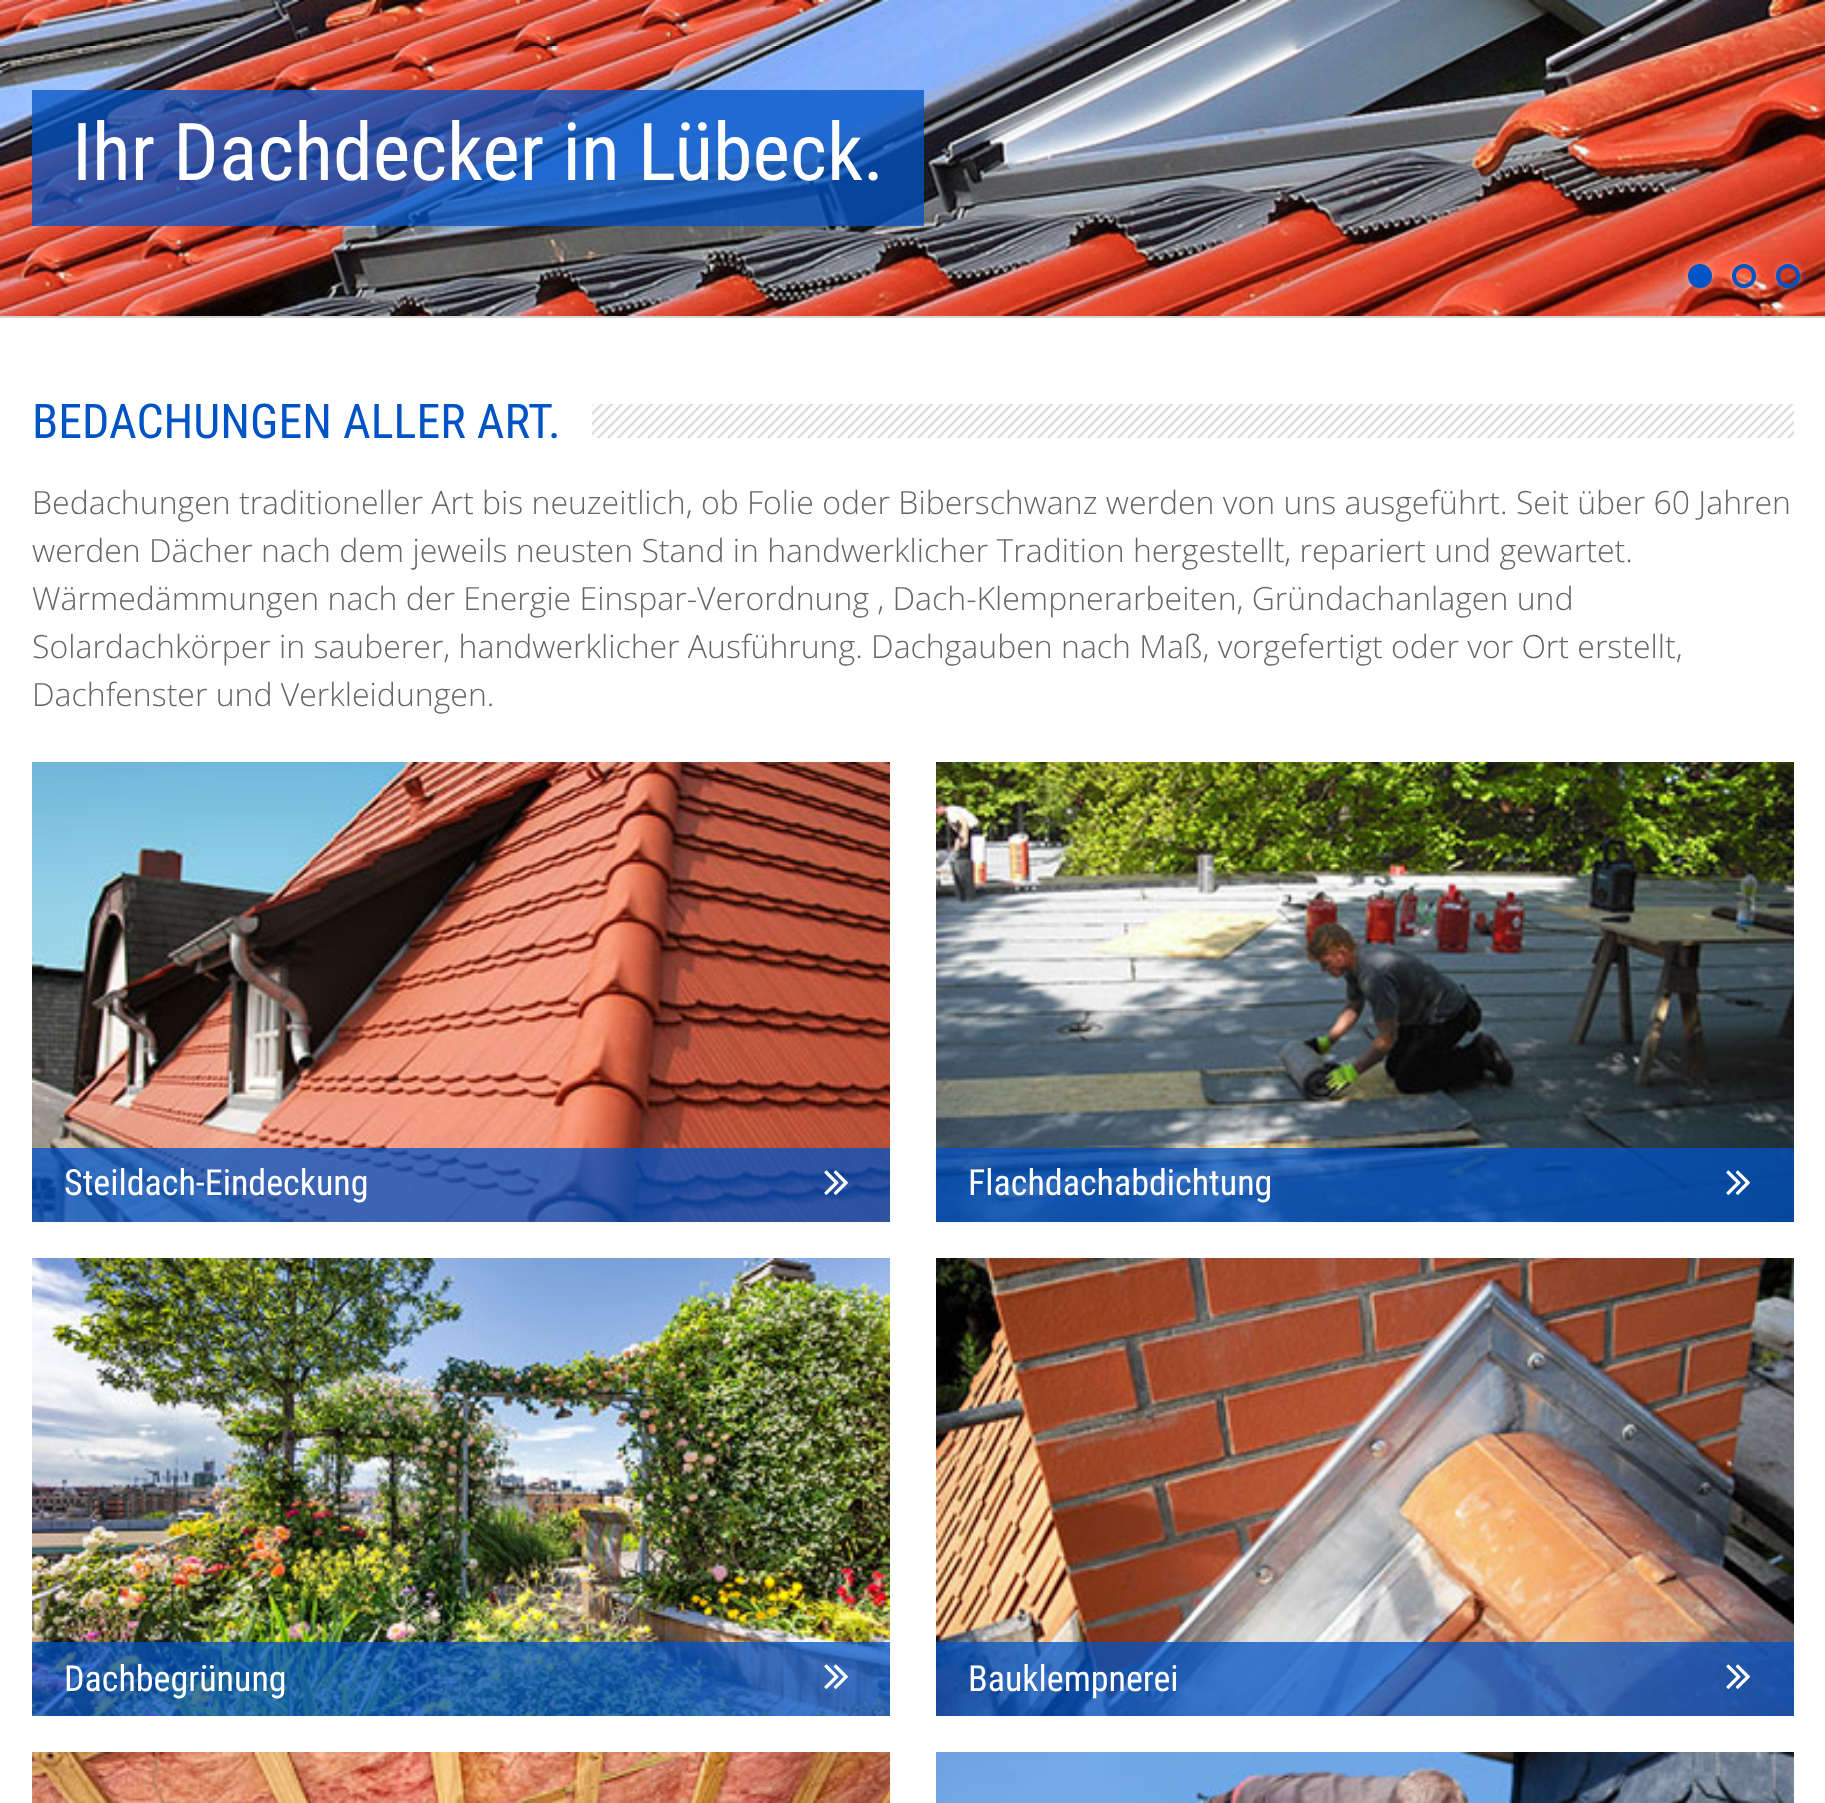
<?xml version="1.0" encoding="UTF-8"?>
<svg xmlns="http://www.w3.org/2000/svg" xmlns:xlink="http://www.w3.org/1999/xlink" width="1825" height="1803">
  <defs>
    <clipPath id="clip1"><path d="M 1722 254 h 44 v 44 h -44 z m 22 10 c 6.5 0 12 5.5 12 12 c 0 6.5 -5.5 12 -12 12 c -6.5 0 -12 -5.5 -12 -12 c 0 -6.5 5.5 -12 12 -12 z" clip-rule="evenodd" /></clipPath>
    <clipPath id="clip2"><path d="M 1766 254 h 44 v 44 h -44 z m 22 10 c 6.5 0 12 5.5 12 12 c 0 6.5 -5.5 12 -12 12 c -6.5 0 -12 -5.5 -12 -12 c 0 -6.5 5.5 -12 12 -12 z" clip-rule="evenodd" /></clipPath>
  </defs>
  <rect width="100%" height="100%" fill="#ffffff" />
  <rect y="316" width="1825" height="2" fill="#d4d4d4" />
  <image x="0" y="0" width="1825" height="316" xlink:href="image1.png" />
  <rect x="32" y="90" width="892" height="136" fill="#0053c5" fill-opacity="0.75" />
  <rect x="1686" y="262" width="28" height="28" rx="14" fill="#ffffff" fill-opacity="0.25" filter="blur(3px)" />
  <circle cx="1700" cy="276" r="10" fill="#0053c5" stroke="#0053c5" stroke-width="4" />
  <g clip-path="url(#clip1)">
    <rect x="1732" y="264" width="24" height="24" rx="12" fill="#ffffff" fill-opacity="0.45" filter="blur(3px)" />
  </g>
  <circle cx="1744" cy="276" r="10" fill="none" stroke="#0053c5" stroke-width="4" />
  <g clip-path="url(#clip2)">
    <rect x="1776" y="264" width="24" height="24" rx="12" fill="#ffffff" fill-opacity="0.45" filter="blur(3px)" />
  </g>
  <circle cx="1788" cy="276" r="10" fill="none" stroke="#0053c5" stroke-width="4" />
  <image x="592" y="404" width="1202" height="34" xlink:href="image2.png" />
  <image x="32" y="762" width="858" height="460" xlink:href="image3.png" />
  <rect x="32" y="1148" width="858" height="74" fill="#0053c5" fill-opacity="0.75" />
  <image x="824" y="1170" width="24" height="25" xlink:href="image4.png" />
  <image x="936" y="762" width="858" height="460" xlink:href="image5.png" />
  <rect x="936" y="1148" width="858" height="74" fill="#0053c5" fill-opacity="0.75" />
  <image x="1726" y="1170" width="24" height="25" xlink:href="image6.png" />
  <image x="32" y="1258" width="858" height="458" xlink:href="image7.png" />
  <rect x="32" y="1642" width="858" height="74" fill="#0053c5" fill-opacity="0.75" />
  <image x="824" y="1664" width="24" height="25" xlink:href="image8.png" />
  <image x="936" y="1258" width="858" height="458" xlink:href="image9.png" />
  <rect x="936" y="1642" width="858" height="74" fill="#0053c5" fill-opacity="0.75" />
  <image x="1726" y="1664" width="24" height="25" xlink:href="image10.png" />
  <image x="32" y="1752" width="858" height="51" xlink:href="image11.png" />
  <image x="936" y="1752" width="858" height="51" xlink:href="image12.png" />
  <text x="72" y="180" style="font-family: Roboto Condensed; font-size: 80px; fill: #ffffff">Ihr Dachdecker in Lübeck.</text>
  <text x="32" y="438" style="font-family: Roboto Condensed; font-size: 48px; fill: #0053c5">BEDACHUNGEN ALLER ART.</text>
  <text x="32" y="514" style="font-family: Open Sans; font-size: 32px; font-weight: 300; fill: #666666">Bedachungen traditioneller Art bis neuzeitlich, ob Folie oder Biberschwanz werden von uns ausgeführt. Seit über 60 Jahren</text>
  <text x="32" y="562" style="font-family: Open Sans; font-size: 32px; font-weight: 300; fill: #666666">werden Dächer nach dem jeweils neusten Stand in handwerklicher Tradition hergestellt, repariert und gewartet.</text>
  <text x="32" y="610" style="font-family: Open Sans; font-size: 32px; font-weight: 300; fill: #666666">Wärmedämmungen nach der Energie Einspar-Verordnung , Dach-Klempnerarbeiten, Gründachanlagen und</text>
  <text x="32" y="658" style="font-family: Open Sans; font-size: 32px; font-weight: 300; fill: #666666">Solardachkörper in sauberer, handwerklicher Ausführung. Dachgauben nach Maß, vorgefertigt oder vor Ort erstellt,</text>
  <text x="32" y="706" style="font-family: Open Sans; font-size: 32px; font-weight: 300; fill: #666666">Dachfenster und Verkleidungen.</text>
  <text x="64" y="1195" style="font-family: Roboto Condensed; font-size: 36px; fill: #ffffff">Steildach-Eindeckung</text>
  <text x="968" y="1195" style="font-family: Roboto Condensed; font-size: 36px; fill: #ffffff">Flachdachabdichtung</text>
  <text x="64" y="1691" style="font-family: Roboto Condensed; font-size: 36px; fill: #ffffff">Dachbegrünung</text>
  <text x="968" y="1691" style="font-family: Roboto Condensed; font-size: 36px; fill: #ffffff">Bauklempnerei</text>
</svg>
